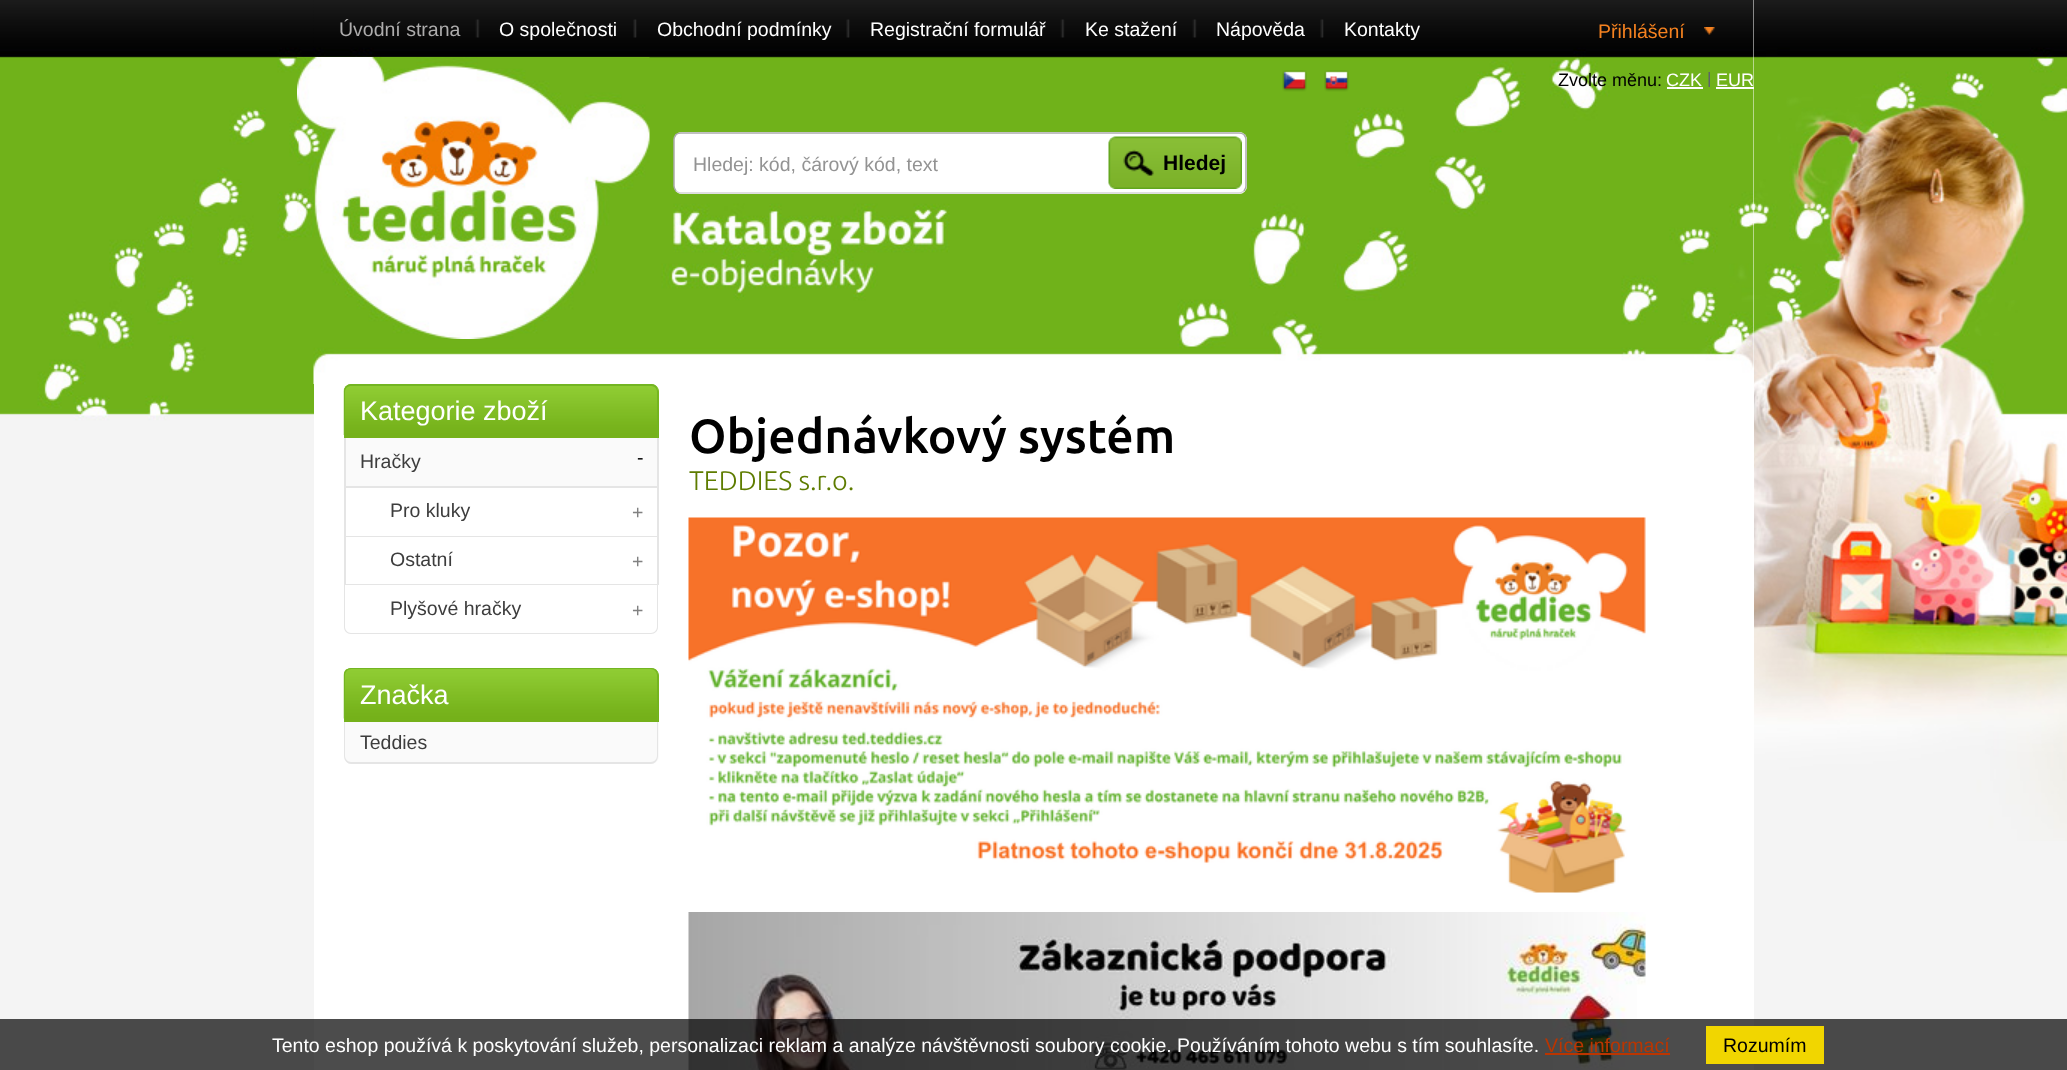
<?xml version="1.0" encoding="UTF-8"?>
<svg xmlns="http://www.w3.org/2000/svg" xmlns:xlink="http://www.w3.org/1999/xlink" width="2067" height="1070">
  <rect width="100%" height="100%" fill="#f4f4f4" />
  <image x="0" y="0" width="2067" height="841" xlink:href="image1.png" />
  <rect x="314" width="1440" height="1070" fill="#ffffff" />
  <image x="313" y="0" width="1441" height="384" xlink:href="image2.png" />
  <image x="475" y="19" width="5" height="19" xlink:href="image3.png" />
  <image x="633" y="19" width="4" height="19" xlink:href="image4.png" />
  <image x="846" y="19" width="4" height="19" xlink:href="image4.png" />
  <image x="1060" y="19" width="5" height="19" xlink:href="image5.png" />
  <image x="1192" y="19" width="5" height="19" xlink:href="image5.png" />
  <image x="1320" y="19" width="4" height="19" xlink:href="image6.png" />
  <image x="1704" y="27" width="11" height="8" xlink:href="image7.png" />
  <image x="297" y="57" width="353" height="282" xlink:href="image8.png" />
  <image x="1282" y="70" width="25" height="22" xlink:href="image9.png" />
  <image x="1324" y="70" width="25" height="22" xlink:href="image10.png" />
  <rect x="1667" y="87" width="36" height="2" fill="#ffffff" />
  <image x="1708" y="72" width="2" height="15" xlink:href="image11.png" />
  <rect x="1716" y="87" width="38" height="2" fill="#ffffff" />
  <rect x="674" y="132" width="573" height="62" rx="8" fill="#ffffff" />
  <path d="M 1244 191 c -1.5 1 -3 2 -5 2 h -558 c -2 0 -3.5 -1 -5 -2" fill="none" stroke="#d5d5d5" stroke-width="1.5" />
  <path d="M 676 191 c -1 -1.5 -2 -3 -2 -5 v -46.5 c 0 -2 1 -3.5 2 -5 c 1.5 -1 3 -1.5 5 -1.5 h 558 c 2 0 3.5 0.5 5 1.5 c 1 1.5 2 3 2 5 v 46.5 c 0 2 -1 3.5 -2 5" fill="none" stroke="#acacac" stroke-width="1.5" />
  <image x="1108" y="136" width="135" height="53" xlink:href="image12.png" />
  <path d="M 352 384 h 299 c 4.5 0 8 3.5 8 8 v 46 h -315 v -46 c 0 -4.5 3.5 -8 8 -8 z" fill="#75b11a" />
  <image x="343" y="385" width="316" height="50" xlink:href="image13.png" />
  <path d="M 351 384 h 300 c 4 0 7 3 7 8 v 46 h -314 v -46 c 0 -5 3 -8 7 -8 z m 0 2 h 300 c 3 0 6 2 6 6 v 46 h -312 v -46 c 0 -4 3 -6 6 -6 z" fill="#73b522" fill-rule="evenodd" />
  <rect x="346" y="438" width="311" height="48" fill="#fafafa" />
  <rect x="657" y="438" width="2" height="147" fill="#e5e5e5" />
  <rect x="344" y="486" width="315" height="2" fill="#e5e5e5" />
  <rect x="344" y="438" width="2" height="50" fill="#e5e5e5" />
  <rect x="344" y="536" width="315" height="1" fill="#e5e5e5" />
  <rect x="344" y="488" width="2" height="49" fill="#e5e5e5" />
  <rect x="344" y="584" width="315" height="1" fill="#e5e5e5" />
  <rect x="344" y="537" width="2" height="48" fill="#e5e5e5" />
  <path d="M 344 585 h 314 v 42 c 0 4 -3 7 -7 7 h -300 c -4 0 -7 -3 -7 -7 z m 1 0 h 312 v 42 c 0 3 -3 6 -6 6 h -300 c -3 0 -6 -3 -6 -6 z" fill="#e5e5e5" fill-rule="evenodd" />
  <path d="M 352 668 h 299 c 4.5 0 8 3.5 8 8 v 46 h -315 v -46 c 0 -4.5 3.5 -8 8 -8 z" fill="#75b11a" />
  <image x="343" y="669" width="316" height="50" xlink:href="image14.png" />
  <path d="M 351 668 h 300 c 4 0 7 3 7 7 v 47 h -314 v -47 c 0 -4 3 -7 7 -7 z m 0 1 h 300 c 3 0 6 3 6 6 v 47 h -312 v -47 c 0 -3 3 -6 6 -6 z" fill="#73b522" fill-rule="evenodd" />
  <path d="M 344 722 h 315 v 34 c 0 4.5 -3.5 8 -8 8 h -299 c -4.5 0 -8 -3.5 -8 -8 z" fill="#fafafa" />
  <path d="M 344 722 h 314 v 34 c 0 4 -3 8 -7 8 h -300 c -4 0 -7 -4 -7 -8 z m 1 0 h 312 v 34 c 0 3 -3 6 -6 6 h -300 c -3 0 -6 -3 -6 -6 z" fill="#e5e5e5" fill-rule="evenodd" />
  <image x="688" y="517" width="958" height="376" xlink:href="image15.png" />
  <image x="688" y="912" width="958" height="158" xlink:href="image16.png" />
  <rect y="1019" width="2067" height="51" fill="#000000" fill-opacity="0.7" />
  <rect x="1545" y="1053" width="125" height="2" fill="#bb3500" />
  <rect x="1706" y="1026" width="118" height="38" fill="#f1d600" />
  <text x="339" y="36" style="font-family: Liberation Sans; font-size: 19.5px; fill: #adacac">Úvodní strana</text>
  <text x="499" y="36" style="font-family: Liberation Sans; font-size: 19.5px; fill: #ffffff">O společnosti</text>
  <text x="657" y="36" style="font-family: Liberation Sans; font-size: 19.5px; fill: #ffffff">Obchodní podmínky</text>
  <text x="870" y="36" style="font-family: Liberation Sans; font-size: 19.5px; fill: #ffffff">Registrační formulář</text>
  <text x="1085" y="36" style="font-family: Liberation Sans; font-size: 19.5px; fill: #ffffff">Ke stažení</text>
  <text x="1216" y="36" style="font-family: Liberation Sans; font-size: 19.5px; fill: #ffffff">Nápověda</text>
  <text x="1344" y="36" style="font-family: Liberation Sans; font-size: 19.5px; fill: #ffffff">Kontakty</text>
  <text x="1598" y="38" style="font-family: Liberation Sans; font-size: 19.5px; fill: #f58220">Přihlášení</text>
  <text x="1558" y="86" style="font-family: Liberation Sans; font-size: 18px; fill: #000000">Zvolte měnu:</text>
  <text x="1666" y="86" style="font-family: Liberation Sans; font-size: 18px; fill: #ffffff">CZK</text>
  <text x="1716" y="86" style="font-family: Liberation Sans; font-size: 18px; fill: #ffffff">EUR</text>
  <text x="693" y="171" style="font-family: Liberation Sans; font-size: 19.5px; fill: #939393">Hledej: kód, čárový kód, text</text>
  <text x="1163" y="170" style="font-family: Liberation Sans; font-size: 21px; font-weight: bold; fill: #000000">Hledej</text>
  <text x="360" y="420" style="font-family: Liberation Sans; font-size: 27px; fill: #ffffff">Kategorie zboží</text>
  <text x="360" y="468" style="font-family: Liberation Sans; font-size: 19.5px; fill: #3d3d3d">Hračky</text>
  <text x="637" y="464" style="font-family: Liberation Sans; font-size: 19.5px; fill: #000000">-</text>
  <text x="390" y="517" style="font-family: Liberation Sans; font-size: 19.5px; fill: #3d3d3d">Pro kluky</text>
  <text x="632" y="519" style="font-family: Liberation Sans; font-size: 19.5px; fill: #818181">+</text>
  <text x="390" y="566" style="font-family: Liberation Sans; font-size: 19.5px; fill: #3d3d3d">Ostatní</text>
  <text x="632" y="568" style="font-family: Liberation Sans; font-size: 19.5px; fill: #818181">+</text>
  <text x="390" y="615" style="font-family: Liberation Sans; font-size: 19.5px; fill: #3d3d3d">Plyšové hračky</text>
  <text x="632" y="617" style="font-family: Liberation Sans; font-size: 19.5px; fill: #818181">+</text>
  <text x="360" y="704" style="font-family: Liberation Sans; font-size: 27px; fill: #ffffff">Značka</text>
  <text x="360" y="749" style="font-family: Liberation Sans; font-size: 19.5px; fill: #3d3d3d">Teddies</text>
  <text x="689" y="453" style="font-family: Ubuntu; font-size: 48px; font-weight: 500; fill: #000000">Objednávkový systém</text>
  <text x="689" y="490" style="font-family: Ubuntu; font-size: 27px; font-weight: 300; fill: #5e7c00">TEDDIES s.r.o.</text>
  <text x="272" y="1052" style="font-family: Liberation Sans; font-size: 19.5px; fill: #ffffff">Tento eshop používá k poskytování služeb, personalizaci reklam a analýze návštěvnosti soubory cookie. Používáním tohoto webu s tím souhlasíte.</text>
  <text x="1545" y="1052" style="font-family: Liberation Sans; font-size: 19.5px; fill: #bb3500">Více informací</text>
  <text x="1723" y="1052" style="font-family: Liberation Sans; font-size: 19.5px; fill: #000000">Rozumím</text>
</svg>
